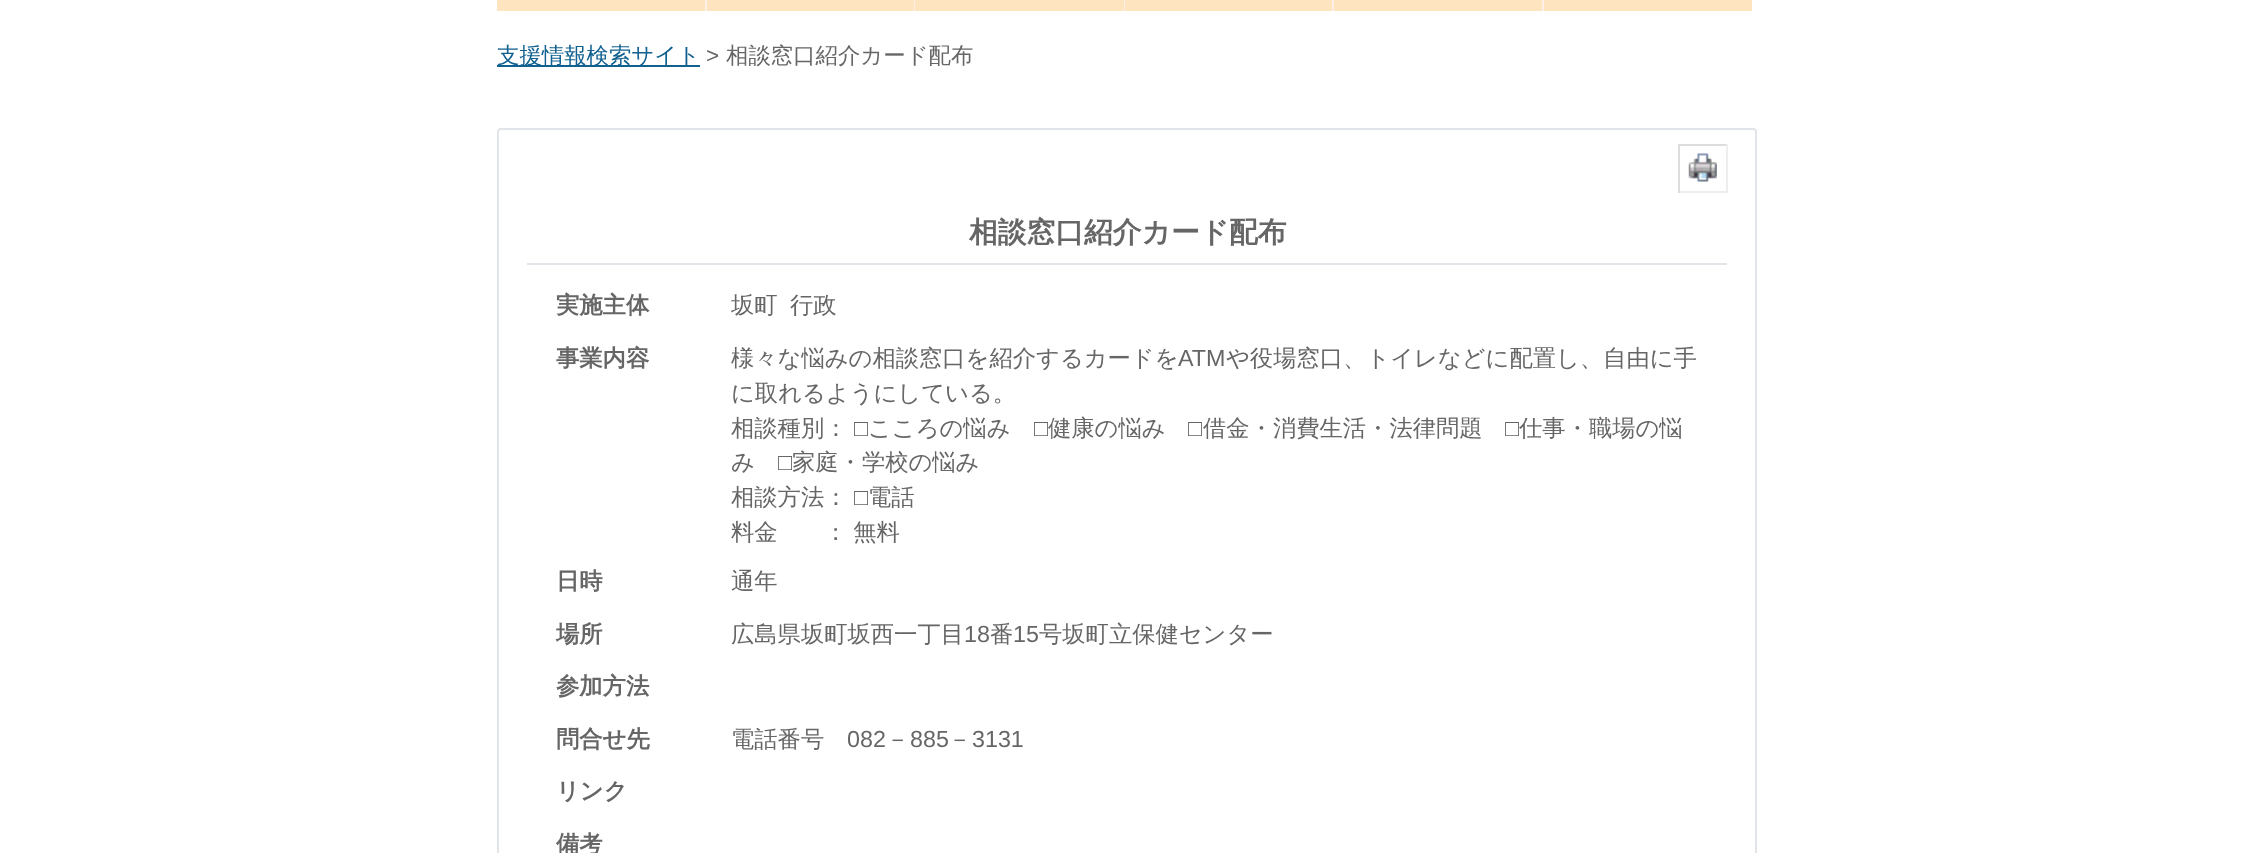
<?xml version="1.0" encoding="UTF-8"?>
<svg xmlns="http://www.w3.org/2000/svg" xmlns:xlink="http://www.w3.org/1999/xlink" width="2253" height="853">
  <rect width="100%" height="100%" fill="#ffffff" />
  <rect x="497" width="208" height="11" fill="#ffe4c0" />
  <rect x="705" width="2" height="11" fill="#ffefe6" />
  <rect x="707" width="207" height="11" fill="#ffe4c0" />
  <rect x="914" width="1" height="11" fill="#ffefe6" />
  <rect x="915" width="209" height="11" fill="#ffe4c0" />
  <rect x="1124" width="1" height="11" fill="#ffefe6" />
  <rect x="1125" width="207" height="11" fill="#ffe4c0" />
  <rect x="1332" width="2" height="11" fill="#ffefe6" />
  <rect x="1334" width="208" height="11" fill="#ffe4c0" />
  <rect x="1542" width="2" height="11" fill="#ffefe6" />
  <rect x="1544" width="208" height="11" fill="#ffe4c0" />
  <rect x="497" y="65" width="203" height="2" fill="#106090" />
  <rect x="498" y="129" width="1258" height="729" rx="3" fill="none" stroke="#e1e4e8" stroke-width="2" />
  <rect x="1678" y="144" width="49" height="2" fill="#dddddd" />
  <rect x="1726" y="144" width="2" height="49" fill="#eeeeee" />
  <rect x="1678" y="191" width="49" height="2" fill="#eeeeee" />
  <rect x="1678" y="144" width="2" height="49" fill="#dddddd" />
  <image x="1688" y="153" width="29" height="29" xlink:href="image1.png" />
  <rect x="527" y="263" width="1200" height="2" fill="#e1e4e8" />
  <text x="497" y="63" style="font-family: WenQuanYi Zen Hei; font-size: 22.4px; font-weight: 500; fill: #106090">支援情報検索サイト</text>
  <text x="706" y="63" style="font-family: Liberation Sans; font-size: 22.4px; fill: #666666">&gt;</text>
  <text x="726" y="63" style="font-family: WenQuanYi Zen Hei; font-size: 22.4px; font-weight: 500; fill: #666666">相談窓口紹介カード配布</text>
  <text x="969" y="242" style="font-family: WenQuanYi Zen Hei; font-size: 28.75px; font-weight: bold; fill: #666666">相談窓口紹介カード配布</text>
  <text x="556" y="313" style="font-family: WenQuanYi Zen Hei; font-size: 23.3px; font-weight: bold; fill: #666666">実施主体</text>
  <text x="731" y="313" style="font-family: WenQuanYi Zen Hei; font-size: 23.3px; font-weight: 500; fill: #666666">坂町</text>
  <text x="790" y="313" style="font-family: WenQuanYi Zen Hei; font-size: 23.3px; font-weight: 500; fill: #666666">行政</text>
  <text x="556" y="366" style="font-family: WenQuanYi Zen Hei; font-size: 23.3px; font-weight: bold; fill: #666666">事業内容</text>
  <text x="731" y="366" style="font-family: WenQuanYi Zen Hei; font-size: 23.3px; font-weight: 500; fill: #666666">様々な悩みの相談窓口を紹介するカードを</text>
  <text x="1178" y="366" style="font-family: Liberation Sans; font-size: 23.3px; fill: #666666">ATM</text>
  <text x="1226" y="366" style="font-family: WenQuanYi Zen Hei; font-size: 23.3px; font-weight: 500; fill: #666666">や役場窓口、トイレなどに配置し、自由に手</text>
  <text x="731" y="401" style="font-family: WenQuanYi Zen Hei; font-size: 23.3px; font-weight: 500; fill: #666666">に取れるようにしている。</text>
  <text x="731" y="436" style="font-family: WenQuanYi Zen Hei; font-size: 23.3px; font-weight: 500; fill: #666666">相談種別：</text>
  <text x="854" y="436" style="font-family: Liberation Sans; font-size: 23.3px; fill: #666666">□</text>
  <text x="868" y="436" style="font-family: WenQuanYi Zen Hei; font-size: 23.3px; font-weight: 500; fill: #666666">こころの悩み</text>
  <text x="1034" y="436" style="font-family: Liberation Sans; font-size: 23.3px; fill: #666666">□</text>
  <text x="1048" y="436" style="font-family: WenQuanYi Zen Hei; font-size: 23.3px; font-weight: 500; fill: #666666">健康の悩み</text>
  <text x="1188" y="436" style="font-family: Liberation Sans; font-size: 23.3px; fill: #666666">□</text>
  <text x="1203" y="436" style="font-family: WenQuanYi Zen Hei; font-size: 23.3px; font-weight: 500; fill: #666666">借金・消費生活・法律問題</text>
  <text x="1505" y="436" style="font-family: Liberation Sans; font-size: 23.3px; fill: #666666">□</text>
  <text x="1519" y="436" style="font-family: WenQuanYi Zen Hei; font-size: 23.3px; font-weight: 500; fill: #666666">仕事・職場の悩</text>
  <text x="731" y="470" style="font-family: WenQuanYi Zen Hei; font-size: 23.3px; font-weight: 500; fill: #666666">み</text>
  <text x="778" y="470" style="font-family: Liberation Sans; font-size: 23.3px; fill: #666666">□</text>
  <text x="792" y="470" style="font-family: WenQuanYi Zen Hei; font-size: 23.3px; font-weight: 500; fill: #666666">家庭・学校の悩み</text>
  <text x="731" y="505" style="font-family: WenQuanYi Zen Hei; font-size: 23.3px; font-weight: 500; fill: #666666">相談方法：</text>
  <text x="854" y="505" style="font-family: Liberation Sans; font-size: 23.3px; fill: #666666">□</text>
  <text x="868" y="505" style="font-family: WenQuanYi Zen Hei; font-size: 23.3px; font-weight: 500; fill: #666666">電話</text>
  <text x="731" y="540" style="font-family: WenQuanYi Zen Hei; font-size: 23.3px; font-weight: 500; fill: #666666">料金</text>
  <text x="824" y="540" word-spacing="-1" style="font-family: WenQuanYi Zen Hei; font-size: 23.3px; font-weight: 500; fill: #666666">： 無料</text>
  <text x="556" y="589" style="font-family: WenQuanYi Zen Hei; font-size: 23.3px; font-weight: bold; fill: #666666">日時</text>
  <text x="731" y="589" style="font-family: WenQuanYi Zen Hei; font-size: 23.3px; font-weight: 500; fill: #666666">通年</text>
  <text x="556" y="642" style="font-family: WenQuanYi Zen Hei; font-size: 23.3px; font-weight: bold; fill: #666666">場所</text>
  <text x="731" y="642" style="font-family: WenQuanYi Zen Hei; font-size: 23.3px; font-weight: 500; fill: #666666">広島県坂町坂西一丁目</text>
  <text x="964" y="642" style="font-family: Liberation Sans; font-size: 23.3px; fill: #666666">18</text>
  <text x="990" y="642" style="font-family: WenQuanYi Zen Hei; font-size: 23.3px; font-weight: 500; fill: #666666">番</text>
  <text x="1013" y="642" style="font-family: Liberation Sans; font-size: 23.3px; fill: #666666">15</text>
  <text x="1039" y="642" style="font-family: WenQuanYi Zen Hei; font-size: 23.3px; font-weight: 500; fill: #666666">号坂町立保健センター</text>
  <text x="556" y="694" style="font-family: WenQuanYi Zen Hei; font-size: 23.3px; font-weight: bold; fill: #666666">参加方法</text>
  <text x="556" y="747" style="font-family: WenQuanYi Zen Hei; font-size: 23.3px; font-weight: bold; fill: #666666">問合せ先</text>
  <text x="731" y="747" style="font-family: WenQuanYi Zen Hei; font-size: 23.3px; font-weight: 500; fill: #666666">電話番号</text>
  <text x="847" y="747" style="font-family: Liberation Sans; font-size: 23.3px; fill: #666666">082</text>
  <text x="886" y="747" style="font-family: WenQuanYi Zen Hei; font-size: 23.3px; font-weight: 500; fill: #666666">－</text>
  <text x="910" y="747" style="font-family: Liberation Sans; font-size: 23.3px; fill: #666666">885</text>
  <text x="948" y="747" style="font-family: WenQuanYi Zen Hei; font-size: 23.3px; font-weight: 500; fill: #666666">－</text>
  <text x="972" y="747" style="font-family: Liberation Sans; font-size: 23.3px; fill: #666666">3131</text>
  <text x="556" y="799" style="font-family: WenQuanYi Zen Hei; font-size: 23.3px; font-weight: bold; fill: #666666">リンク</text>
  <text x="556" y="852" style="font-family: WenQuanYi Zen Hei; font-size: 23.3px; font-weight: bold; fill: #666666">備考</text>
</svg>
